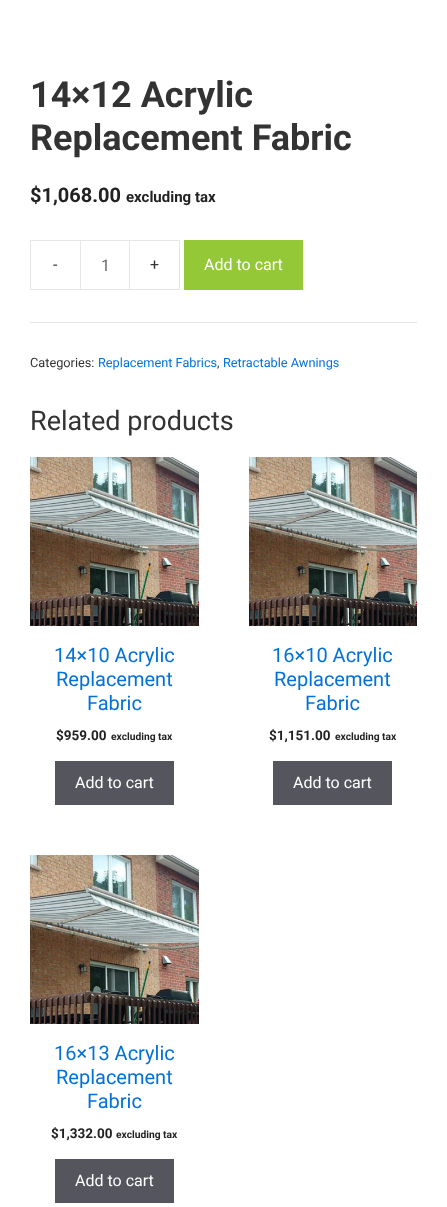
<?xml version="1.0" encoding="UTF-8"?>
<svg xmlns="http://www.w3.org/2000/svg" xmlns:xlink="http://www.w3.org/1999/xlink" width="447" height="1207">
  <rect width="100%" height="100%" fill="#ffffff" />
  <path d="M 30 240 h 50 v 1 h -49 z m 50 50 h -50 l 1 -1 h 49 z" fill="#e6e6e6" />
  <path d="M 30 290 v -50 l 1 1 v 48 z" fill="#000000" fill-opacity="0.1" />
  <rect x="80.5" y="240.5" width="49" height="49" fill="none" stroke="#e6e6e6" />
  <path d="M 130 240 h 50 l -1 1 h -49 z" fill="#e6e6e6" />
  <path d="M 180 240 v 50 l -1 -1 v -48 z" fill="#000000" fill-opacity="0.1" />
  <path d="M 180 290 h -50 v -1 h 49 z" fill="#000000" fill-opacity="0.1" />
  <rect x="184" y="240" width="119" height="50" fill="#95c837" />
  <rect x="30" y="322" width="387" height="1" fill="#e6e6e6" />
  <image x="30" y="457" width="169" height="169" xlink:href="image1.png" />
  <rect x="55" y="761" width="119" height="44" fill="#55555e" />
  <image x="249" y="457" width="168" height="169" xlink:href="image2.png" />
  <rect x="273" y="761" width="119" height="44" fill="#55555e" />
  <image x="30" y="855" width="169" height="169" xlink:href="image1.png" />
  <rect x="55" y="1159" width="119" height="44" fill="#55555e" />
  <text x="30" y="107" style="font-family: Roboto; font-size: 36px; font-weight: bold; fill: #333333">14×12 Acrylic</text>
  <text x="30" y="150" style="font-family: Roboto; font-size: 36px; font-weight: bold; fill: #333333">Replacement Fabric</text>
  <text x="30" y="202" style="font-family: Roboto; font-size: 20px; font-weight: bold; fill: #222222">$1,068.00</text>
  <text x="126" y="202" style="font-family: Roboto; font-size: 15px; font-weight: bold; fill: #222222">excluding tax</text>
  <text x="53" y="270" style="font-family: Roboto; font-size: 16px; fill: #333333">-</text>
  <text x="101" y="271" style="font-family: Roboto; font-size: 16px; fill: #666666">1</text>
  <text x="150" y="270" style="font-family: Roboto; font-size: 16px; fill: #333333">+</text>
  <text x="204" y="270" style="font-family: Roboto; font-size: 16px; fill: #ffffff">Add to cart</text>
  <text x="30" y="367" style="font-family: Roboto; font-size: 12.75px; fill: #333333">Categories:</text>
  <text x="98" y="367" style="font-family: Roboto; font-size: 12.75px; fill: #0471da">Replacement Fabrics</text>
  <text x="217" y="367" style="font-family: Roboto; font-size: 12.75px; fill: #333333">,</text>
  <text x="223" y="367" style="font-family: Roboto; font-size: 12.75px; fill: #0471da">Retractable Awnings</text>
  <text x="30" y="430" style="font-family: Roboto; font-size: 27px; fill: #333333">Related products</text>
  <text x="54" y="662" style="font-family: Roboto; font-size: 20px; fill: #0471da">14×10 Acrylic</text>
  <text x="56" y="686" style="font-family: Roboto; font-size: 20px; fill: #0471da">Replacement</text>
  <text x="87" y="710" style="font-family: Roboto; font-size: 20px; fill: #0471da">Fabric</text>
  <text x="56" y="740" style="font-family: Roboto; font-size: 13.5px; font-weight: bold; fill: #222222">$959.00</text>
  <text x="111" y="740" style="font-family: Roboto; font-size: 10.25px; font-weight: bold; fill: #222222">excluding tax</text>
  <text x="75" y="788" style="font-family: Roboto; font-size: 16px; fill: #ffffff">Add to cart</text>
  <text x="272" y="662" style="font-family: Roboto; font-size: 20px; fill: #0471da">16×10 Acrylic</text>
  <text x="274" y="686" style="font-family: Roboto; font-size: 20px; fill: #0471da">Replacement</text>
  <text x="305" y="710" style="font-family: Roboto; font-size: 20px; fill: #0471da">Fabric</text>
  <text x="269" y="740" style="font-family: Roboto; font-size: 13.5px; font-weight: bold; fill: #222222">$1,151.00</text>
  <text x="335" y="740" style="font-family: Roboto; font-size: 10.25px; font-weight: bold; fill: #222222">excluding tax</text>
  <text x="293" y="788" style="font-family: Roboto; font-size: 16px; fill: #ffffff">Add to cart</text>
  <text x="54" y="1060" style="font-family: Roboto; font-size: 20px; fill: #0471da">16×13 Acrylic</text>
  <text x="56" y="1084" style="font-family: Roboto; font-size: 20px; fill: #0471da">Replacement</text>
  <text x="87" y="1108" style="font-family: Roboto; font-size: 20px; fill: #0471da">Fabric</text>
  <text x="51" y="1138" style="font-family: Roboto; font-size: 13.5px; font-weight: bold; fill: #222222">$1,332.00</text>
  <text x="116" y="1138" style="font-family: Roboto; font-size: 10.25px; font-weight: bold; fill: #222222">excluding tax</text>
  <text x="75" y="1186" style="font-family: Roboto; font-size: 16px; fill: #ffffff">Add to cart</text>
</svg>
